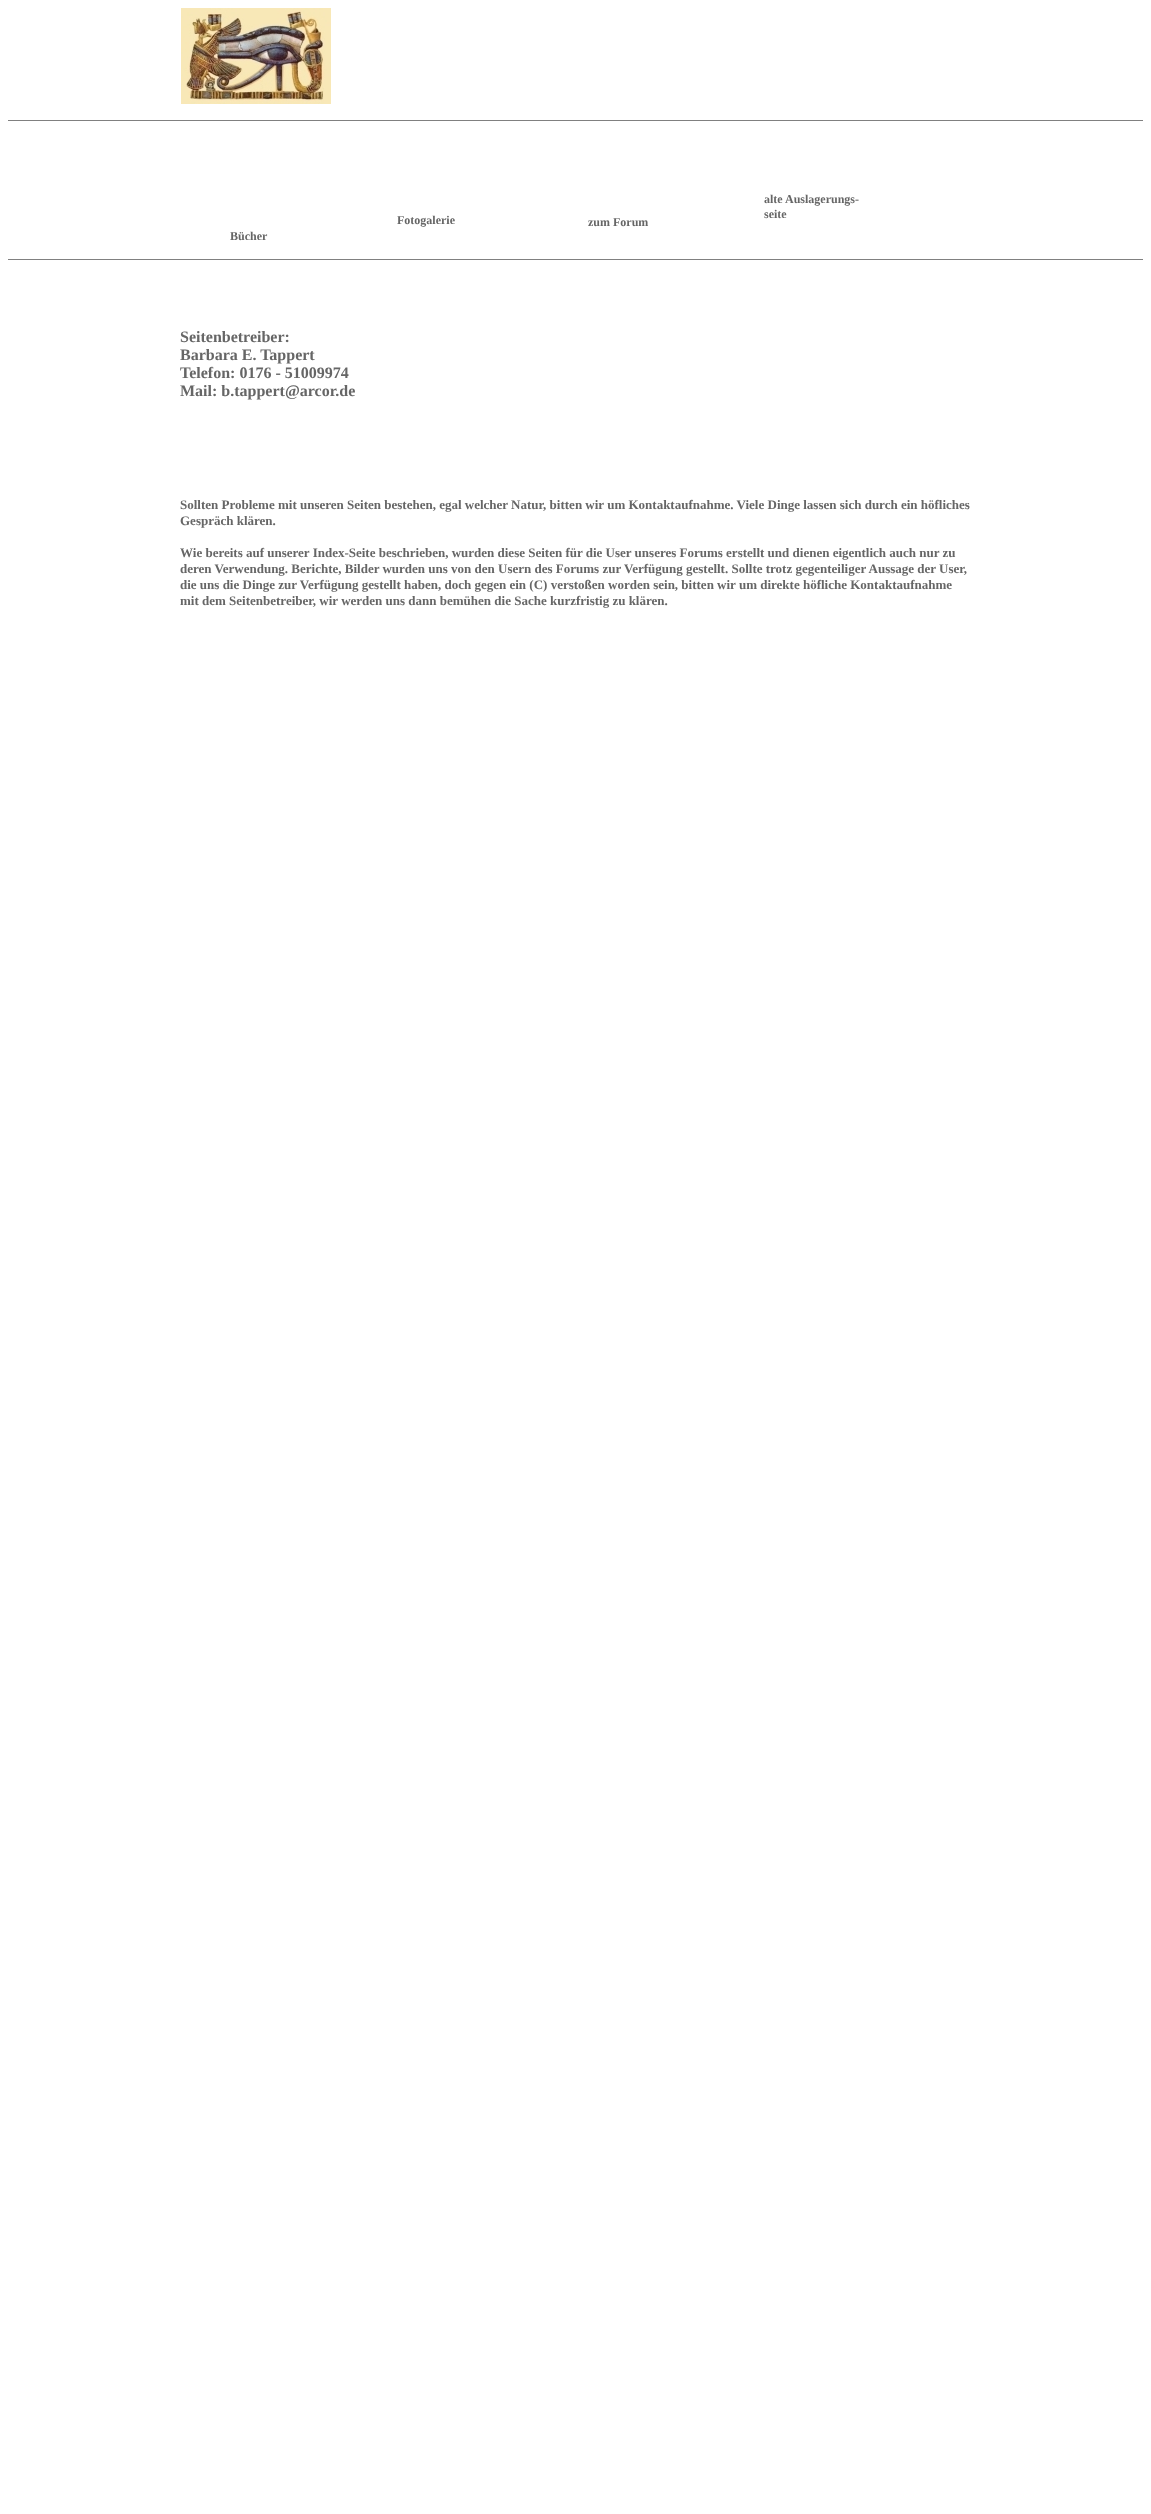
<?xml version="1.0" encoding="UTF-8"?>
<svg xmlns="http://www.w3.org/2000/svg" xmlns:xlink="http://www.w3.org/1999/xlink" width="1151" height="2514">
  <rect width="100%" height="100%" fill="#ffffff" />
  <image x="181" y="8" width="150" height="96" xlink:href="image1.png" />
  <rect x="8" y="120" width="1135" height="1" fill="#808080" />
  <rect x="8" y="259" width="1135" height="1" fill="#808080" />
  <text x="764" y="203" style="font-family: Liberation Serif; font-size: 12px; font-weight: bold; fill: #666666">alte Auslagerungs-</text>
  <text x="764" y="218" style="font-family: Liberation Serif; font-size: 12px; font-weight: bold; fill: #666666">seite</text>
  <text x="397" y="224" style="font-family: Liberation Serif; font-size: 12px; font-weight: bold; fill: #666666">Fotogalerie</text>
  <text x="588" y="226" style="font-family: Liberation Serif; font-size: 12px; font-weight: bold; fill: #666666">zum Forum</text>
  <text x="230" y="240" style="font-family: Liberation Serif; font-size: 12px; font-weight: bold; fill: #666666">Bücher</text>
  <text x="180" y="342" style="font-family: Liberation Serif; font-size: 16px; font-weight: bold; fill: #666666">Seitenbetreiber:</text>
  <text x="180" y="360" style="font-family: Liberation Serif; font-size: 16px; font-weight: bold; fill: #666666">Barbara E. Tappert</text>
  <text x="180" y="378" style="font-family: Liberation Serif; font-size: 16px; font-weight: bold; fill: #666666">Telefon: 0176 - 51009974</text>
  <text x="180" y="396" style="font-family: Liberation Serif; font-size: 16px; font-weight: bold; fill: #666666">Mail: b.tappert@arcor.de</text>
  <text x="180" y="509" style="font-family: Liberation Serif; font-size: 13px; font-weight: bold; fill: #666666">Sollten Probleme mit unseren Seiten bestehen, egal welcher Natur, bitten wir um Kontaktaufnahme. Viele Dinge lassen sich durch ein höfliches</text>
  <text x="180" y="525" style="font-family: Liberation Serif; font-size: 13px; font-weight: bold; fill: #666666">Gespräch klären.</text>
  <text x="180" y="557" style="font-family: Liberation Serif; font-size: 13px; font-weight: bold; fill: #666666">Wie bereits auf unserer Index-Seite beschrieben, wurden diese Seiten für die User unseres Forums erstellt und dienen eigentlich auch nur zu</text>
  <text x="180" y="573" style="font-family: Liberation Serif; font-size: 13px; font-weight: bold; fill: #666666">deren Verwendung. Berichte, Bilder wurden uns von den Usern des Forums zur Verfügung gestellt. Sollte trotz gegenteiliger Aussage der User,</text>
  <text x="180" y="589" style="font-family: Liberation Serif; font-size: 13px; font-weight: bold; fill: #666666">die uns die Dinge zur Verfügung gestellt haben, doch gegen ein (C) verstoßen worden sein, bitten wir um direkte höfliche Kontaktaufnahme</text>
  <text x="180" y="605" style="font-family: Liberation Serif; font-size: 13px; font-weight: bold; fill: #666666">mit dem Seitenbetreiber, wir werden uns dann bemühen die Sache kurzfristig zu klären.</text>
</svg>
